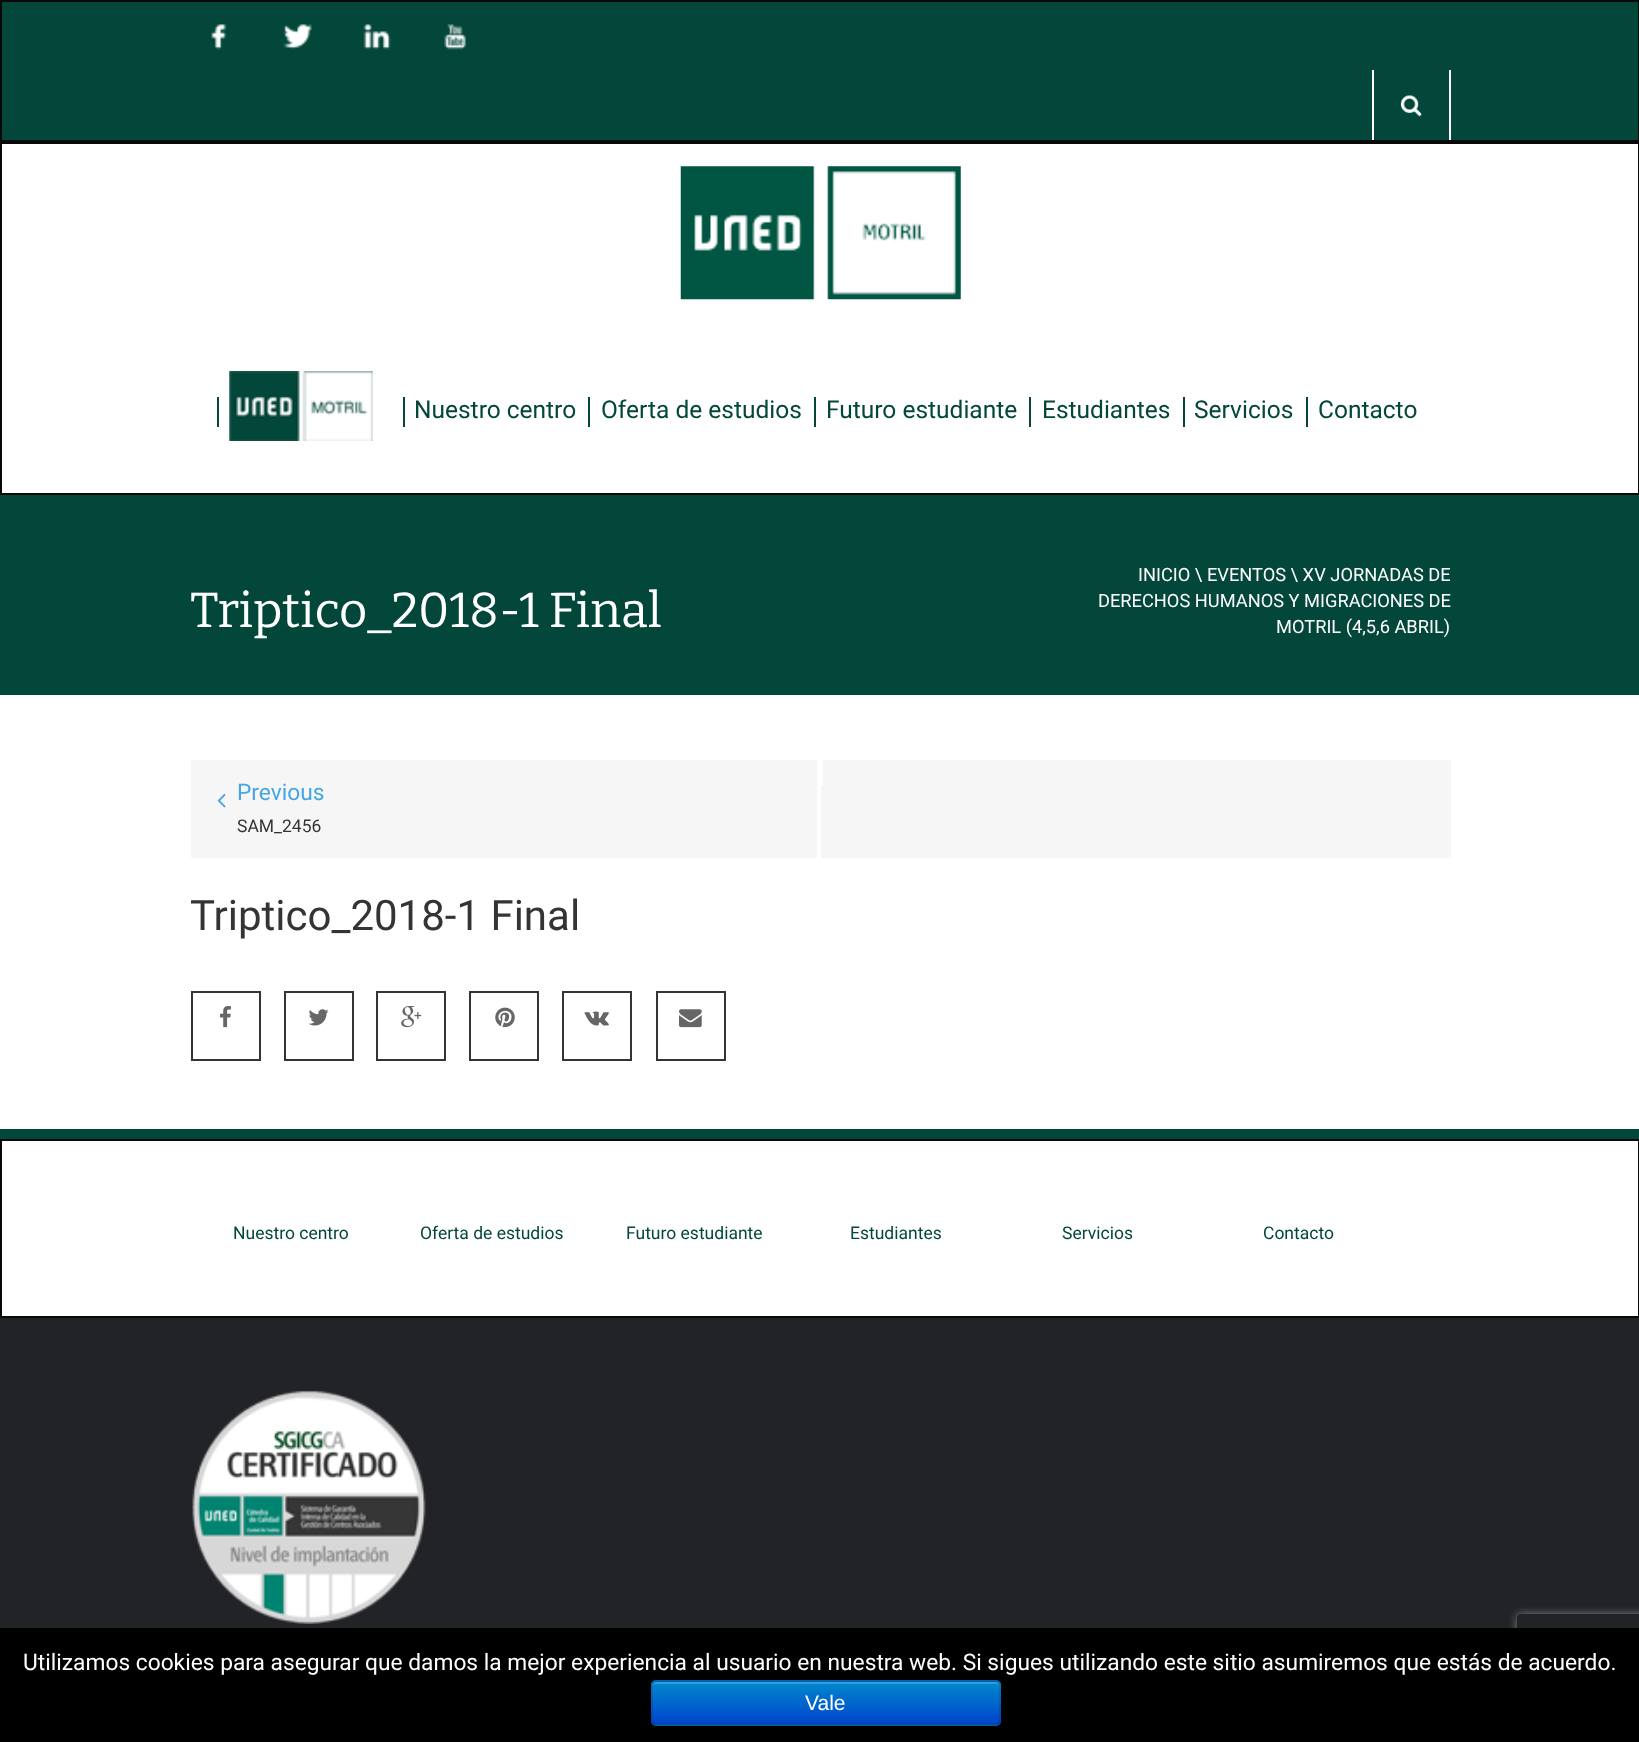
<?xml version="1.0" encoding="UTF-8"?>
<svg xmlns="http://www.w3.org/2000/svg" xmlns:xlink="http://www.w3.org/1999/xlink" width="1639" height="1742">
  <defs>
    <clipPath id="clip1"><path d="M 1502 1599 h 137 v 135 h -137 z m 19 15 h 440 c 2 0 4 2 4 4 v 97 c 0 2 -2 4 -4 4 h -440 c -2 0 -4 -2 -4 -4 v -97 c 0 -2 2 -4 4 -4 z" clip-rule="evenodd" /></clipPath>
    <clipPath id="clip2"><rect x="651" y="1680" width="350" height="46" rx="5" /></clipPath>
    <linearGradient id="g1" gradientUnits="userSpaceOnUse" x1="826" y1="1682" x2="826" y2="1724"><stop offset="0" stop-color="#0088cc" /><stop offset="1" stop-color="#0044cc" /></linearGradient>
  </defs>
  <rect width="100%" height="100%" fill="#ffffff" />
  <rect x="1" y="1" width="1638" height="140" fill="#03473a" stroke="#080808" stroke-width="2" />
  <image x="211" y="24" width="16" height="26" xlink:href="image1.png" />
  <image x="283" y="24" width="29" height="26" xlink:href="image2.png" />
  <image x="363" y="24" width="28" height="26" xlink:href="image3.png" />
  <image x="444" y="24" width="22" height="26" xlink:href="image4.png" />
  <rect x="1449" y="70" width="2" height="70" fill="#ffffff" />
  <rect x="1372" y="70" width="2" height="70" fill="#ffffff" />
  <image x="1400" y="95" width="22" height="22" xlink:href="image5.png" />
  <rect x="1" y="143" width="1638" height="351" fill="none" stroke="#080808" stroke-width="2" />
  <image x="680" y="166" width="281" height="134" xlink:href="image6.png" />
  <rect x="217" y="397" width="2" height="30" fill="#03473a" />
  <image x="229" y="371" width="144" height="70" xlink:href="image7.png" />
  <rect x="403" y="397" width="2" height="30" fill="#03473a" />
  <rect x="588" y="397" width="2" height="30" fill="#03473a" />
  <rect x="814" y="397" width="2" height="30" fill="#03473a" />
  <rect x="1029" y="397" width="2" height="30" fill="#03473a" />
  <rect x="1183" y="397" width="2" height="30" fill="#03473a" />
  <rect x="1306" y="397" width="2" height="30" fill="#03473a" />
  <rect y="495" width="1639" height="200" fill="#03473a" />
  <rect x="191" y="760" width="1260" height="98" fill="#f6f6f6" />
  <rect x="821" y="760" width="2" height="26" fill="#ffffff" />
  <rect x="817" y="760" width="4" height="98" fill="#ffffff" />
  <image x="217" y="793" width="9" height="15" xlink:href="image8.png" />
  <rect x="192" y="992" width="68" height="68" fill="none" stroke="#343434" stroke-width="2" />
  <image x="219" y="1006" width="12" height="22" xlink:href="image9.png" />
  <rect x="285" y="992" width="68" height="68" fill="none" stroke="#343434" stroke-width="2" />
  <image x="308" y="1009" width="21" height="17" xlink:href="image10.png" />
  <rect x="377" y="992" width="68" height="68" fill="none" stroke="#343434" stroke-width="2" />
  <image x="401" y="1006" width="21" height="22" xlink:href="image11.png" />
  <rect x="470" y="992" width="68" height="68" fill="none" stroke="#343434" stroke-width="2" />
  <image x="495" y="1007" width="20" height="21" xlink:href="image12.png" />
  <rect x="563" y="992" width="68" height="68" fill="none" stroke="#343434" stroke-width="2" />
  <image x="584" y="1011" width="25" height="15" xlink:href="image13.png" />
  <rect x="657" y="992" width="68" height="68" fill="none" stroke="#343434" stroke-width="2" />
  <image x="679" y="1009" width="23" height="19" xlink:href="image14.png" />
  <rect y="1318" width="1639" height="310" fill="#212327" />
  <rect y="1129" width="1639" height="10" fill="#03473a" />
  <rect x="1" y="1140" width="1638" height="177" fill="none" stroke="#080808" stroke-width="2" />
  <image x="192" y="1390" width="234" height="234" xlink:href="image15.png" />
  <g clip-path="url(#clip1)">
    <rect x="1517" y="1614" width="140" height="105" rx="4" fill="#808080" filter="blur(4.5px)" />
  </g>
  <rect y="1628" width="1639" height="114" fill="#000000" />
  <rect x="651" y="1680" width="350" height="46" rx="5" fill="#006dcc" />
  <g clip-path="url(#clip2)">
    <rect x="651" y="1682" width="350" height="42" fill="url(#g1)" />
  </g>
  <path d="M 656 1684 h 340 c 2 0 3 1 3 3 v -1 c 0 -2 -2 -4 -4 -4 h -338 c -2 0 -4 2 -4 4 v 1 c 0 -2 1 -3 3 -3 z" fill="#339fd6" />
  <path d="M 999 1723.5 c -1 0.5 -2 1 -3 1 h -340 c -1 0 -2 -0.5 -3 -1" fill="none" stroke="#000000" stroke-opacity="0.25" stroke-width="1.8" />
  <path d="M 653 1723.5 c -0.5 -1 -1 -2 -1 -3.5 v -35 c 0 -1 0.5 -2 1 -3 c 1 -0.5 2 -1 3 -1 h 340 c 1 0 2 0.5 3 1 c 0.5 1 1 2 1 3 v 35 c 0 1.5 -0.5 2.5 -1 3.5" fill="none" stroke="#000000" stroke-opacity="0.1" stroke-width="1.8" />
  <text x="414" y="418" style="font-family: Roboto; font-size: 24.5px; fill: #03473a">Nuestro centro</text>
  <text x="601" y="418" style="font-family: Roboto; font-size: 24.5px; fill: #03473a">Oferta de estudios</text>
  <text x="826" y="418" style="font-family: Roboto; font-size: 24.5px; fill: #03473a">Futuro estudiante</text>
  <text x="1042" y="418" style="font-family: Roboto; font-size: 24.5px; fill: #03473a">Estudiantes</text>
  <text x="1194" y="418" style="font-family: Roboto; font-size: 24.5px; fill: #03473a">Servicios</text>
  <text x="1318" y="418" style="font-family: Roboto; font-size: 24.5px; fill: #03473a">Contacto</text>
  <text x="190" y="627" style="font-family: Bitter; font-size: 49px; font-weight: 100; fill: #ffffff">Triptico_2018-1 Final</text>
  <text x="1138" y="581" style="font-family: Roboto; font-size: 18.25px; fill: #ffffff">INICIO \ EVENTOS \ XV JORNADAS DE</text>
  <text x="1098" y="607" style="font-family: Roboto; font-size: 18.25px; fill: #ffffff">DERECHOS HUMANOS Y MIGRACIONES DE</text>
  <text x="1276" y="633" style="font-family: Roboto; font-size: 18.25px; fill: #ffffff">MOTRIL (4,5,6 ABRIL)</text>
  <text x="237" y="800" style="font-family: Roboto; font-size: 22.75px; fill: #46a5e5">Previous</text>
  <text x="237" y="832" style="font-family: Roboto; font-size: 17.5px; fill: #343434">SAM_2456</text>
  <text x="190" y="930" style="font-family: Roboto; font-size: 42px; fill: #343434">Triptico_2018-1 Final</text>
  <text x="233" y="1239" style="font-family: Roboto; font-size: 17.5px; fill: #03473a">Nuestro centro</text>
  <text x="420" y="1239" style="font-family: Roboto; font-size: 17.5px; fill: #03473a">Oferta de estudios</text>
  <text x="626" y="1239" style="font-family: Roboto; font-size: 17.5px; fill: #03473a">Futuro estudiante</text>
  <text x="850" y="1239" style="font-family: Roboto; font-size: 17.5px; fill: #03473a">Estudiantes</text>
  <text x="1062" y="1239" style="font-family: Roboto; font-size: 17.5px; fill: #03473a">Servicios</text>
  <text x="1263" y="1239" style="font-family: Roboto; font-size: 17.5px; fill: #03473a">Contacto</text>
  <text x="23" y="1670" style="font-family: Roboto; font-size: 22.75px; fill: #ffffff">Utilizamos cookies para asegurar que damos la mejor experiencia al usuario en nuestra web. Si sigues utilizando este sitio asumiremos que estás de acuerdo.</text>
  <text x="805" y="1710" style="font-family: Liberation Sans; font-size: 21px; fill: #ffffff">Vale</text>
</svg>
